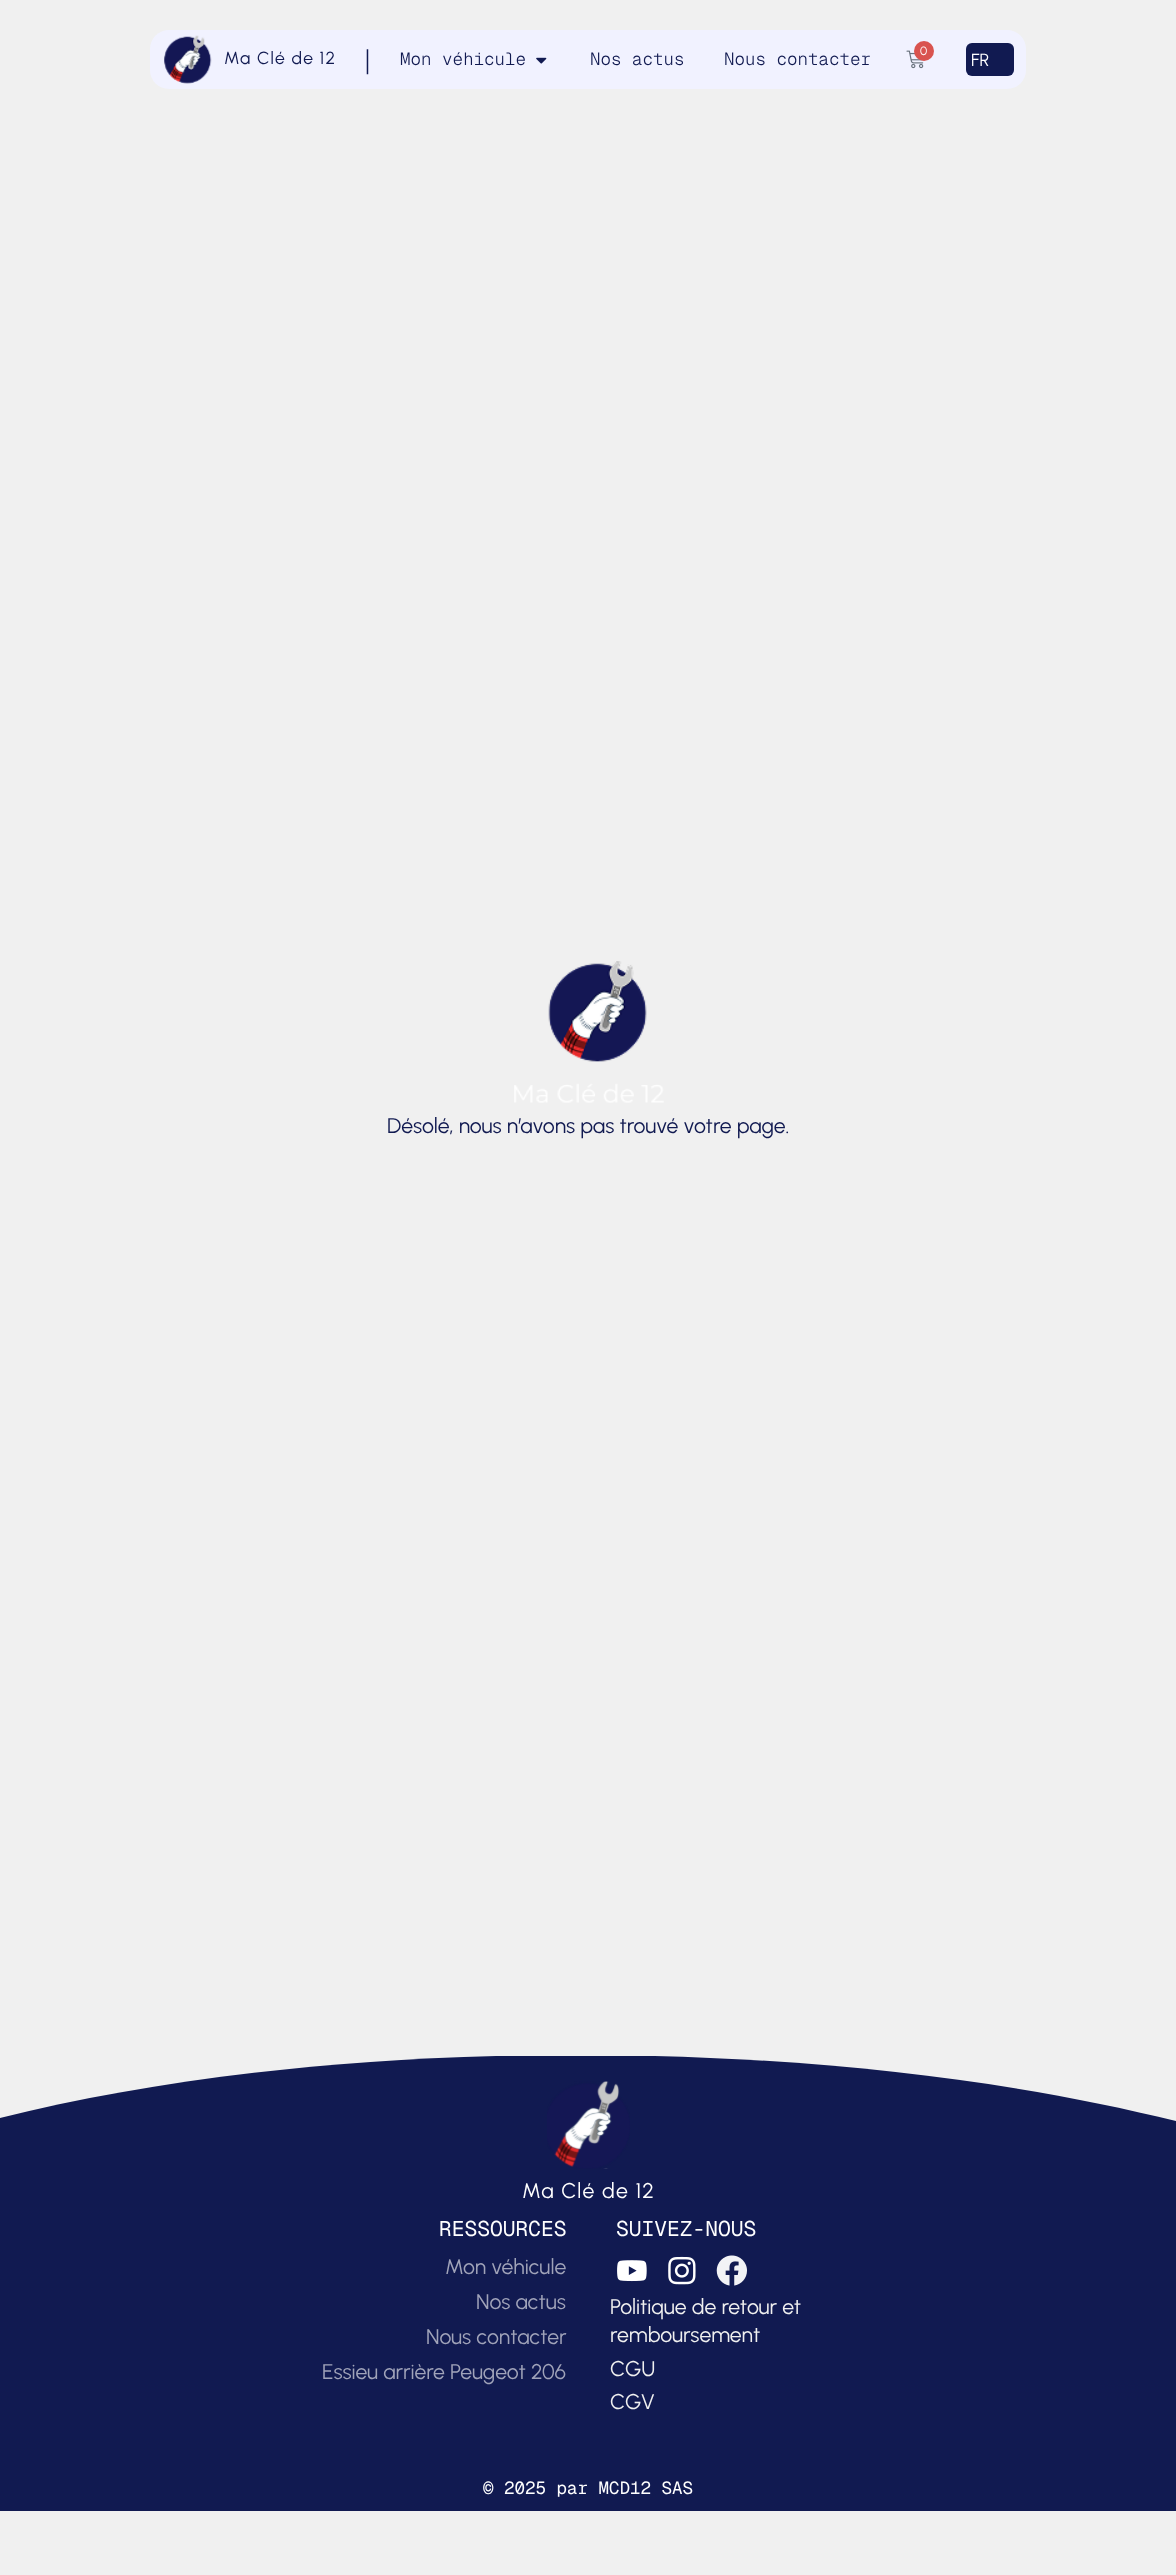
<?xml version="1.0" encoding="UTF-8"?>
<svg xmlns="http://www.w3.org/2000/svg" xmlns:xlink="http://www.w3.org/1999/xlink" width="1176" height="2575">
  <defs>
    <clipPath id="clip1"><rect y="2056" width="1176" height="457" /></clipPath>
  </defs>
  <rect width="100%" height="100%" fill="#f0f0f0" />
  <rect x="150" y="30" width="876" height="59" rx="19" fill="#f1f2ff" />
  <image x="164" y="35" width="48" height="49" xlink:href="image1.png" />
  <image x="536" y="57" width="11" height="7" xlink:href="image2.png" />
  <image x="906" y="50" width="18" height="19" xlink:href="image3.png" />
  <circle cx="924" cy="51" r="10" fill="#d9534f" />
  <rect x="966" y="43" width="48" height="33" rx="6" fill="#111a51" />
  <image x="514" y="961" width="150" height="142" xlink:href="image4.png" />
  <g clip-path="url(#clip1)">
    <path d="M -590 2492 v 19 h 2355 v -19 c -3 -86 -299 -433 -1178 -437 c -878 -3 -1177 353 -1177 437 z" fill="#111a51" />
  </g>
  <image x="547" y="2081" width="83" height="88" xlink:href="image5.png" />
  <image x="617" y="2260" width="30" height="22" xlink:href="image6.png" />
  <image x="668" y="2256" width="28" height="29" xlink:href="image7.png" />
  <image x="716" y="2255" width="31" height="31" xlink:href="image8.png" />
  <text x="224" y="64" style="font-family: Urbanist; font-size: 17.5px; letter-spacing: 1.25px; fill: #111a51">Ma Clé de 12</text>
  <text x="355" y="68" style="font-family: WenQuanYi Zen Hei; font-size: 25px; font-weight: 500; fill: #111a51">｜</text>
  <text x="400" y="65" style="font-family: Geist Mono; font-size: 17.5px; font-weight: 300; fill: #111a51">Mon véhicule</text>
  <text x="590" y="65" style="font-family: Geist Mono; font-size: 17.5px; font-weight: 300; fill: #111a51">Nos actus</text>
  <text x="724" y="65" style="font-family: Geist Mono; font-size: 17.5px; font-weight: 300; fill: #111a51">Nous contacter</text>
  <text x="920" y="55" style="font-family: Urbanist; font-size: 12px; fill: #ffffff">0</text>
  <text x="971" y="66" style="font-family: Urbanist; font-size: 17.5px; fill: #ffffff">FR</text>
  <text x="387" y="1133" style="font-family: Urbanist; font-size: 21.25px; fill: #111a51">Désolé, nous n’avons pas trouvé votre page.</text>
  <text x="522" y="2198" style="font-family: Urbanist; font-size: 21.25px; letter-spacing: 1.25px; fill: #ffffff">Ma Clé de 12</text>
  <text x="439" y="2236" style="font-family: Geist Mono; font-size: 21.25px; fill: #ffffff">RESSOURCES</text>
  <text x="445" y="2274" style="font-family: Urbanist; font-size: 21.25px; fill: #a0a3b9">Mon véhicule</text>
  <text x="476" y="2309" style="font-family: Urbanist; font-size: 21.25px; fill: #a0a3b9">Nos actus</text>
  <text x="426" y="2344" style="font-family: Urbanist; font-size: 21.25px; fill: #a0a3b9">Nous contacter</text>
  <text x="322" y="2379" style="font-family: Urbanist; font-size: 21.25px; fill: #a0a3b9">Essieu arrière Peugeot 206</text>
  <text x="616" y="2236" style="font-family: Geist Mono; font-size: 21.25px; fill: #ffffff">SUIVEZ-NOUS</text>
  <text x="610" y="2314" style="font-family: Urbanist; font-size: 21.25px; fill: #f0f0f0">Politique de retour et</text>
  <text x="610" y="2342" style="font-family: Urbanist; font-size: 21.25px; fill: #f0f0f0">remboursement</text>
  <text x="610" y="2376" style="font-family: Urbanist; font-size: 21.25px; fill: #f0f0f0">CGU</text>
  <text x="610" y="2409" style="font-family: Urbanist; font-size: 21.25px; fill: #f0f0f0">CGV</text>
  <text x="483" y="2494" style="font-family: Geist Mono; font-size: 17.5px; fill: #ffffff">© 2025 par MCD12 SAS</text>
</svg>
